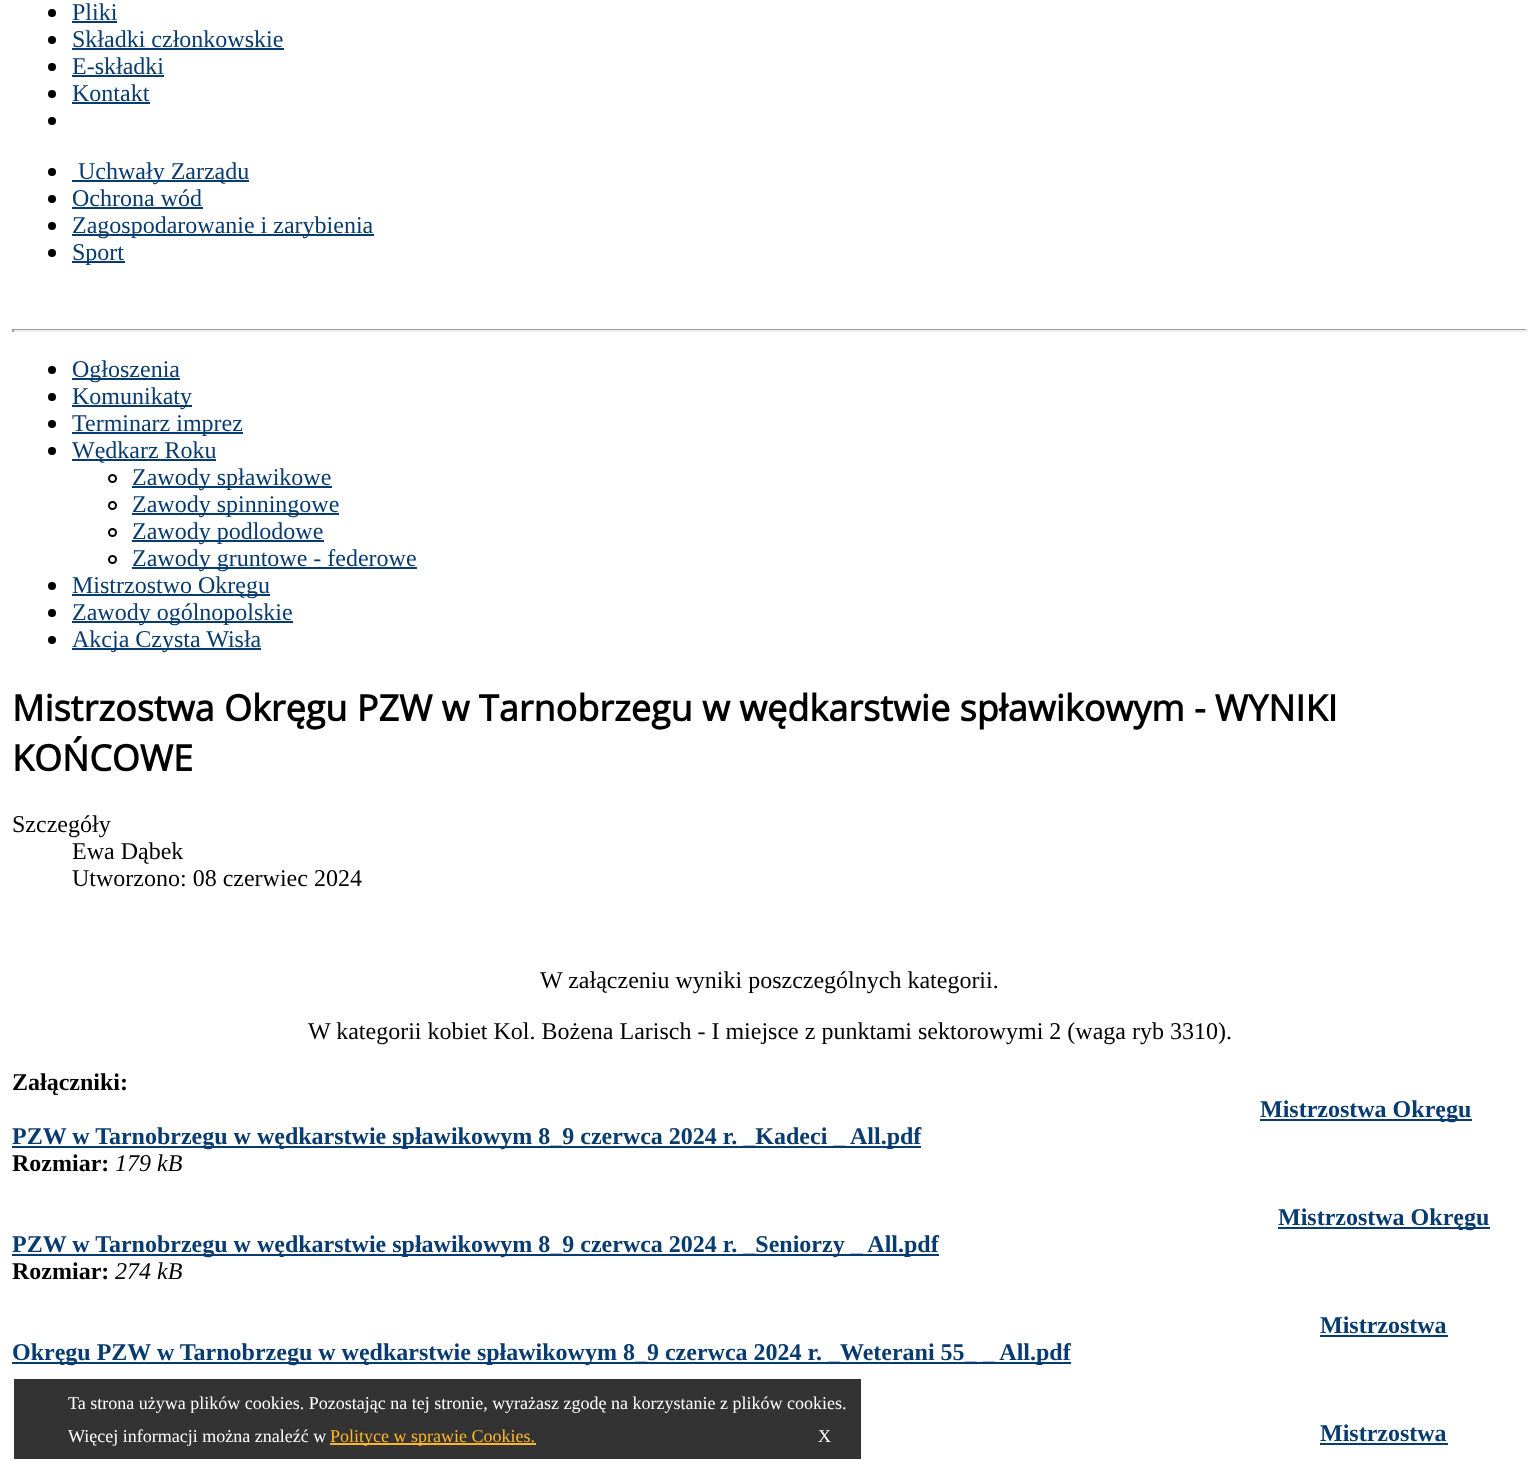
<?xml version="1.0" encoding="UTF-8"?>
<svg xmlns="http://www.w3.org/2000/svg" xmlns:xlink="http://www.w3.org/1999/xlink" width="1538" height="1461">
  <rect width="100%" height="100%" fill="#ffffff" />
  <circle cx="52" cy="13" r="4" fill="#000000" />
  <rect x="72" y="21" width="45" height="2" fill="#083b70" />
  <circle cx="52" cy="40" r="4" fill="#000000" />
  <rect x="72" y="48" width="212" height="2" fill="#083b70" />
  <circle cx="52" cy="67" r="4" fill="#000000" />
  <rect x="72" y="75" width="92" height="2" fill="#083b70" />
  <circle cx="52" cy="94" r="4" fill="#000000" />
  <rect x="72" y="102" width="78" height="2" fill="#083b70" />
  <circle cx="52" cy="121" r="4" fill="#000000" />
  <circle cx="52" cy="172" r="4" fill="#000000" />
  <rect x="72" y="180" width="177" height="2" fill="#083b70" />
  <circle cx="52" cy="199" r="4" fill="#000000" />
  <rect x="72" y="207" width="131" height="2" fill="#083b70" />
  <circle cx="52" cy="226" r="4" fill="#000000" />
  <rect x="72" y="234" width="302" height="2" fill="#083b70" />
  <circle cx="52" cy="253" r="4" fill="#000000" />
  <rect x="72" y="261" width="53" height="2" fill="#083b70" />
  <rect x="12" y="329" width="1515" height="1" fill="#9f9f9f" />
  <rect x="1526" y="329" width="2" height="3" fill="#eeeeee" />
  <rect x="12" y="330" width="1515" height="2" fill="#eeeeee" />
  <rect x="12" y="329" width="2" height="3" fill="#9f9f9f" />
  <circle cx="52" cy="370" r="4" fill="#000000" />
  <rect x="72" y="378" width="108" height="2" fill="#083b70" />
  <circle cx="52" cy="397" r="4" fill="#000000" />
  <rect x="72" y="405" width="120" height="2" fill="#083b70" />
  <circle cx="52" cy="424" r="4" fill="#000000" />
  <rect x="72" y="432" width="171" height="2" fill="#083b70" />
  <circle cx="52" cy="451" r="4" fill="#000000" />
  <rect x="72" y="459" width="144" height="2" fill="#083b70" />
  <circle cx="112.5" cy="478.5" r="3.5" fill="none" stroke="#000000" stroke-width="2" />
  <rect x="132" y="486" width="200" height="2" fill="#083b70" />
  <circle cx="112.5" cy="505.5" r="3.5" fill="none" stroke="#000000" stroke-width="2" />
  <rect x="132" y="513" width="207" height="2" fill="#083b70" />
  <circle cx="112.5" cy="532.5" r="3.5" fill="none" stroke="#000000" stroke-width="2" />
  <rect x="132" y="540" width="192" height="2" fill="#083b70" />
  <circle cx="112.5" cy="559.5" r="3.5" fill="none" stroke="#000000" stroke-width="2" />
  <rect x="132" y="567" width="285" height="2" fill="#083b70" />
  <circle cx="52" cy="586" r="4" fill="#000000" />
  <rect x="72" y="594" width="198" height="2" fill="#083b70" />
  <circle cx="52" cy="613" r="4" fill="#000000" />
  <rect x="72" y="621" width="221" height="2" fill="#083b70" />
  <circle cx="52" cy="640" r="4" fill="#000000" />
  <rect x="72" y="648" width="189" height="2" fill="#083b70" />
  <rect x="1260" y="1119" width="212" height="2" fill="#083b70" />
  <rect x="12" y="1146" width="909" height="2" fill="#083b70" />
  <rect x="1278" y="1227" width="212" height="2" fill="#083b70" />
  <rect x="12" y="1254" width="927" height="2" fill="#083b70" />
  <rect x="1320" y="1335" width="128" height="2" fill="#083b70" />
  <rect x="12" y="1362" width="1059" height="2" fill="#083b70" />
  <rect x="1320" y="1443" width="128" height="2" fill="#083b70" />
  <rect x="14" y="1379" width="847" height="80" fill="#000000" fill-opacity="0.8" />
  <rect x="330" y="1443" width="206" height="2" fill="#ffb72b" />
  <text x="72" y="20" style="font-family: Liberation Serif; font-size: 24px; fill: #083b70">Pliki</text>
  <text x="72" y="47" style="font-family: Liberation Serif; font-size: 24px; fill: #083b70">Składki członkowskie</text>
  <text x="72" y="74" style="font-family: Liberation Serif; font-size: 24px; fill: #083b70">E-składki</text>
  <text x="72" y="101" style="font-family: Liberation Serif; font-size: 24px; fill: #083b70">Kontakt</text>
  <text x="78" y="179" style="font-family: Liberation Serif; font-size: 24px; fill: #083b70">Uchwały Zarządu</text>
  <text x="72" y="206" style="font-family: Liberation Serif; font-size: 24px; fill: #083b70">Ochrona wód</text>
  <text x="72" y="233" style="font-family: Liberation Serif; font-size: 24px; fill: #083b70">Zagospodarowanie i zarybienia</text>
  <text x="72" y="260" style="font-family: Liberation Serif; font-size: 24px; fill: #083b70">Sport</text>
  <text x="72" y="377" style="font-family: Liberation Serif; font-size: 24px; fill: #083b70">Ogłoszenia</text>
  <text x="72" y="404" style="font-family: Liberation Serif; font-size: 24px; fill: #083b70">Komunikaty</text>
  <text x="72" y="431" style="font-family: Liberation Serif; font-size: 24px; fill: #083b70">Terminarz imprez</text>
  <text x="72" y="458" style="font-family: Liberation Serif; font-size: 24px; fill: #083b70">Wędkarz Roku</text>
  <text x="132" y="485" style="font-family: Liberation Serif; font-size: 24px; fill: #083b70">Zawody spławikowe</text>
  <text x="132" y="512" style="font-family: Liberation Serif; font-size: 24px; fill: #083b70">Zawody spinningowe</text>
  <text x="132" y="539" style="font-family: Liberation Serif; font-size: 24px; fill: #083b70">Zawody podlodowe</text>
  <text x="132" y="566" style="font-family: Liberation Serif; font-size: 24px; fill: #083b70">Zawody gruntowe - federowe</text>
  <text x="72" y="593" style="font-family: Liberation Serif; font-size: 24px; fill: #083b70">Mistrzostwo Okręgu</text>
  <text x="72" y="620" style="font-family: Liberation Serif; font-size: 24px; fill: #083b70">Zawody ogólnopolskie</text>
  <text x="72" y="647" style="font-family: Liberation Serif; font-size: 24px; fill: #083b70">Akcja Czysta Wisła</text>
  <text x="12" y="721" style="font-family: Open Sans; font-size: 36px; font-weight: bold; fill: #000000">Mistrzostwa Okręgu PZW w Tarnobrzegu w wędkarstwie spławikowym - WYNIKI</text>
  <text x="12" y="771" style="font-family: Open Sans; font-size: 36px; font-weight: bold; fill: #000000">KOŃCOWE</text>
  <text x="12" y="832" style="font-family: Liberation Serif; font-size: 24px; fill: #000000">Szczegóły</text>
  <text x="72" y="859" style="font-family: Liberation Serif; font-size: 24px; fill: #000000">Ewa Dąbek</text>
  <text x="72" y="886" style="font-family: Liberation Serif; font-size: 24px; fill: #000000">Utworzono: 08 czerwiec 2024</text>
  <text x="540" y="988" style="font-family: Liberation Serif; font-size: 24px; fill: #000000">W załączeniu wyniki poszczególnych kategorii.</text>
  <text x="308" y="1039" style="font-family: Liberation Serif; font-size: 24px; fill: #000000">W kategorii kobiet Kol. Bożena Larisch - I miejsce z punktami sektorowymi 2 (waga ryb 3310).</text>
  <text x="12" y="1090" style="font-family: Liberation Serif; font-size: 24px; font-weight: bold; fill: #000000">Załączniki:</text>
  <text x="1260" y="1117" style="font-family: Liberation Serif; font-size: 24px; font-weight: bold; fill: #083b70">Mistrzostwa Okręgu</text>
  <text x="12" y="1144" style="font-family: Liberation Serif; font-size: 24px; font-weight: bold; fill: #083b70">PZW w Tarnobrzegu w wędkarstwie spławikowym 8_9 czerwca 2024 r. _Kadeci _ All.pdf</text>
  <text x="12" y="1171" style="font-family: Liberation Serif; font-size: 24px; font-weight: bold; fill: #000000">Rozmiar:</text>
  <text x="115" y="1171" style="font-family: Liberation Serif; font-size: 24px; font-style: italic; fill: #000000">179 kB</text>
  <text x="1278" y="1225" style="font-family: Liberation Serif; font-size: 24px; font-weight: bold; fill: #083b70">Mistrzostwa Okręgu</text>
  <text x="12" y="1252" style="font-family: Liberation Serif; font-size: 24px; font-weight: bold; fill: #083b70">PZW w Tarnobrzegu w wędkarstwie spławikowym 8_9 czerwca 2024 r. _Seniorzy _ All.pdf</text>
  <text x="12" y="1279" style="font-family: Liberation Serif; font-size: 24px; font-weight: bold; fill: #000000">Rozmiar:</text>
  <text x="115" y="1279" style="font-family: Liberation Serif; font-size: 24px; font-style: italic; fill: #000000">274 kB</text>
  <text x="1320" y="1333" style="font-family: Liberation Serif; font-size: 24px; font-weight: bold; fill: #083b70">Mistrzostwa</text>
  <text x="12" y="1360" style="font-family: Liberation Serif; font-size: 24px; font-weight: bold; fill: #083b70">Okręgu PZW w Tarnobrzegu w wędkarstwie spławikowym 8_9 czerwca 2024 r. _Weterani 55_ _ All.pdf</text>
  <text x="1320" y="1441" style="font-family: Liberation Serif; font-size: 24px; font-weight: bold; fill: #083b70">Mistrzostwa</text>
  <text x="68" y="1409" style="font-family: Liberation Serif; font-size: 18px; fill: #ffffff">Ta strona używa plików cookies. Pozostając na tej stronie, wyrażasz zgodę na korzystanie z plików cookies.</text>
  <text x="68" y="1442" style="font-family: Liberation Serif; font-size: 18px; fill: #ffffff">Więcej informacji można znaleźć w</text>
  <text x="330" y="1442" style="font-family: Liberation Serif; font-size: 18px; fill: #ffb72b">Polityce w sprawie Cookies.</text>
  <text x="818" y="1442" style="font-family: Liberation Serif; font-size: 18px; fill: #ffffff">X</text>
</svg>
